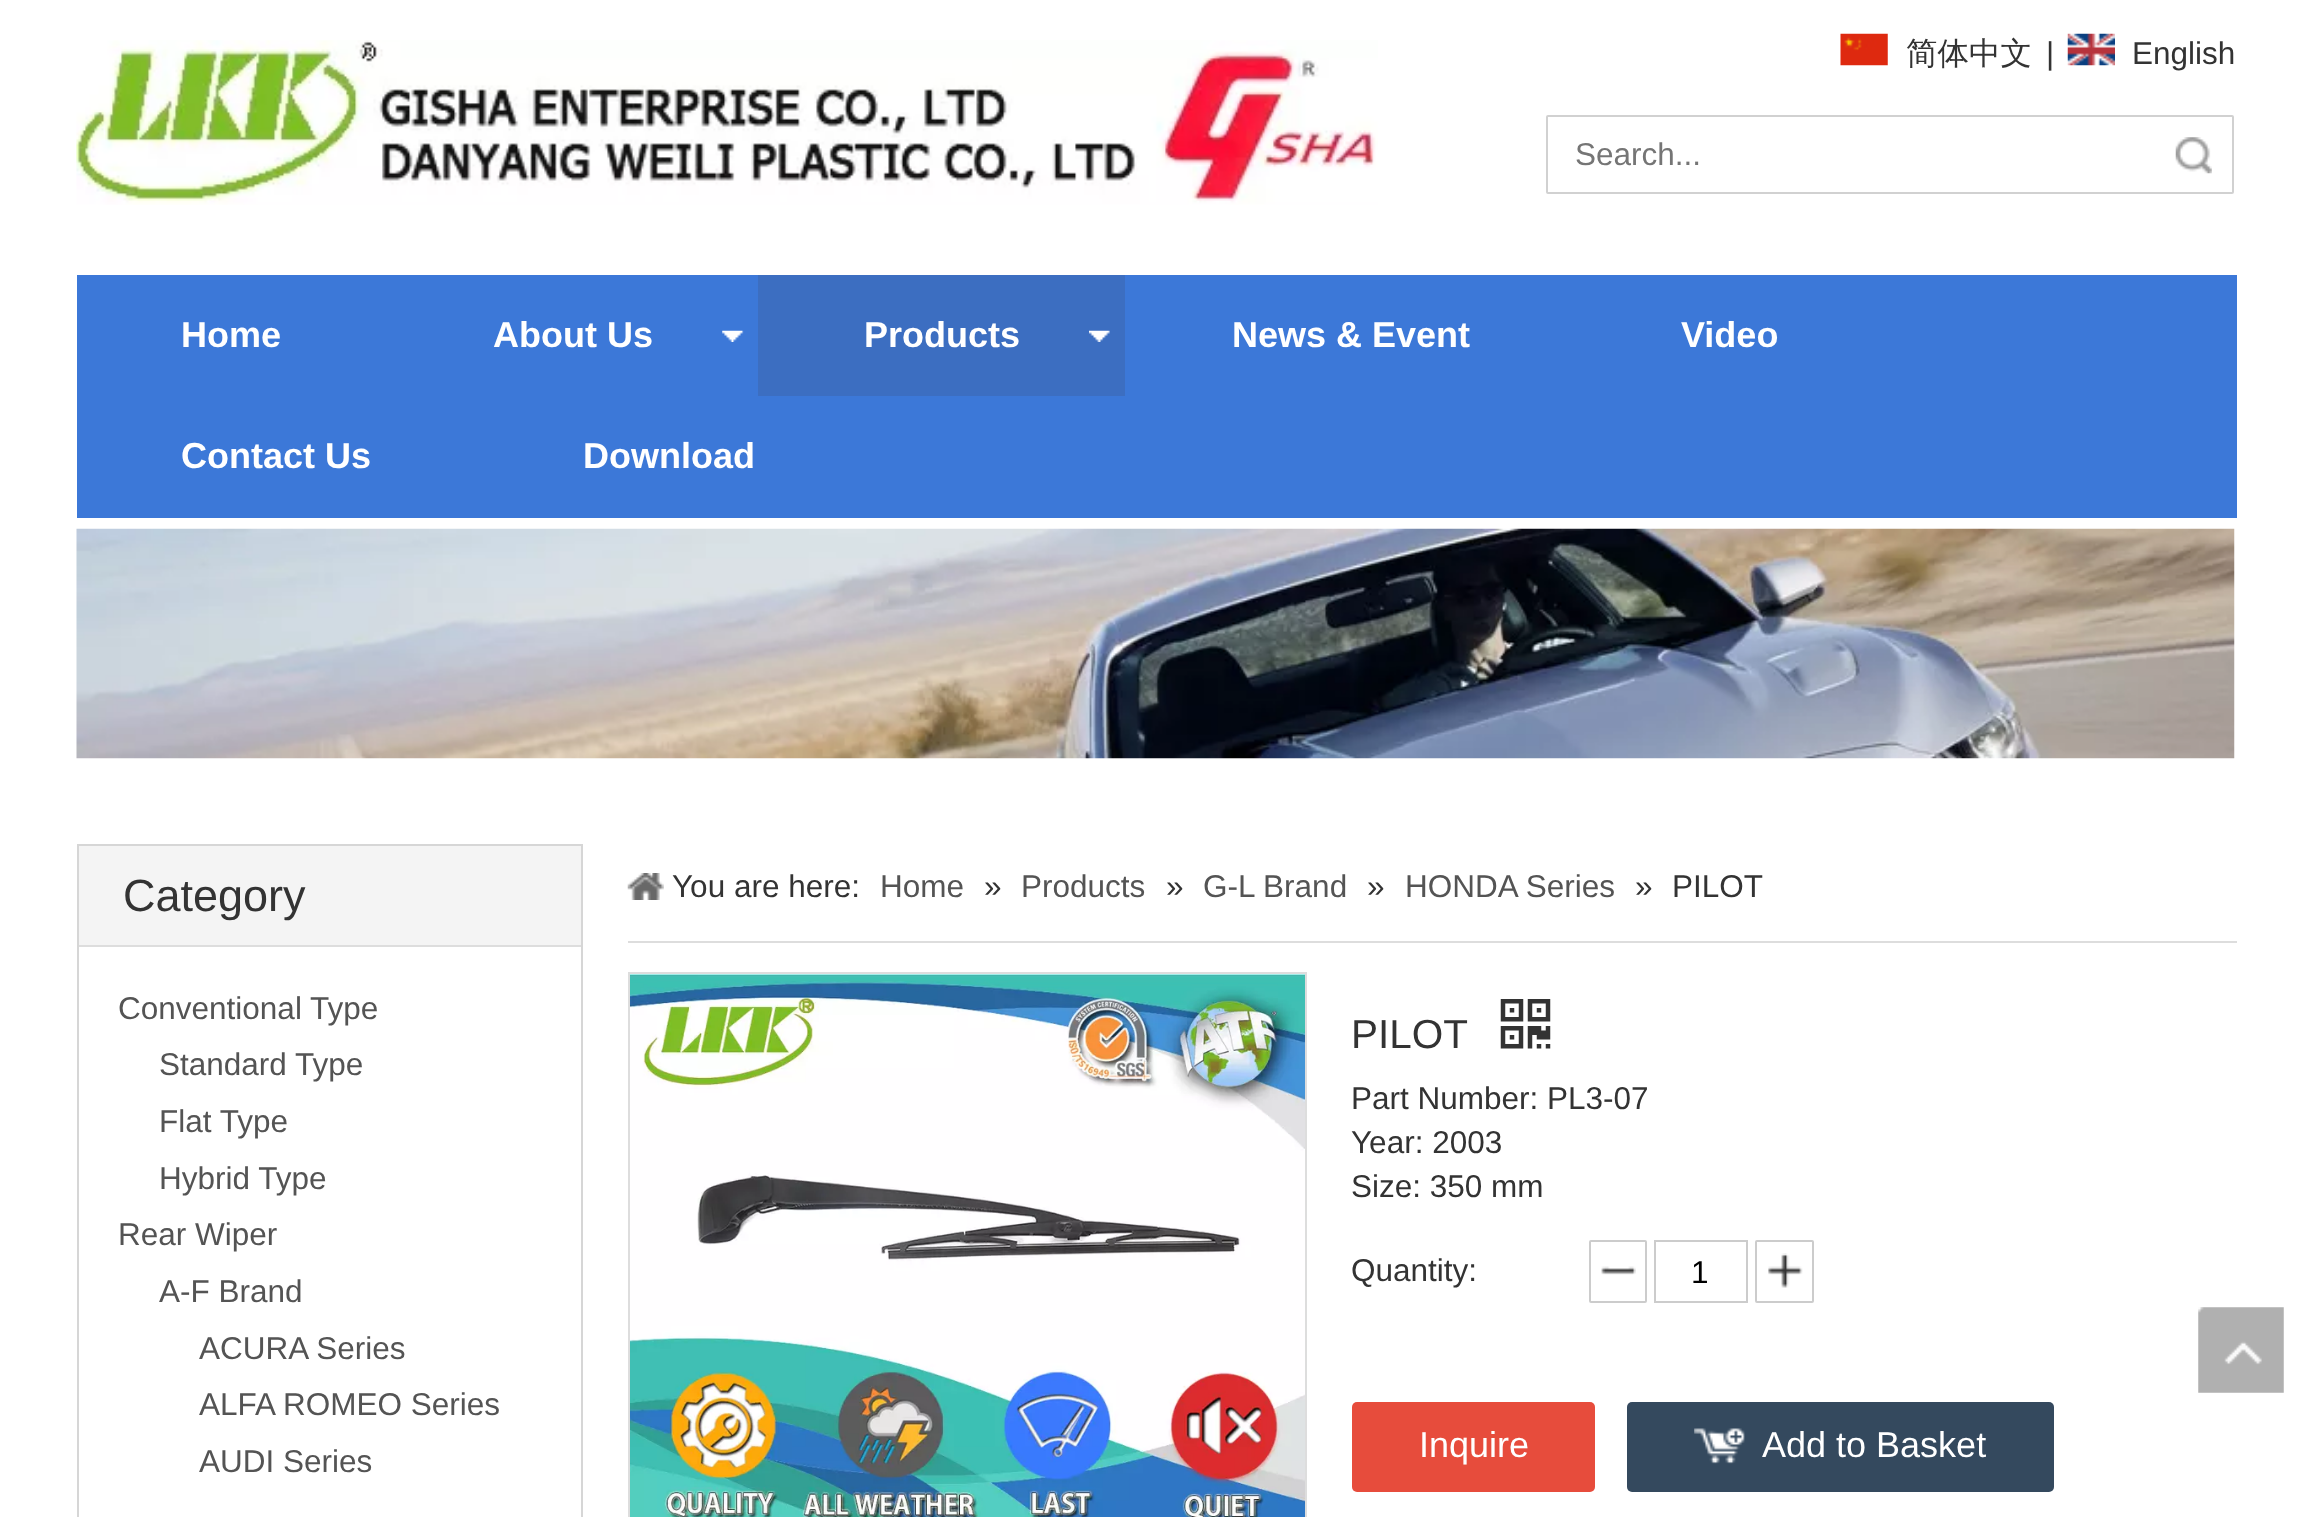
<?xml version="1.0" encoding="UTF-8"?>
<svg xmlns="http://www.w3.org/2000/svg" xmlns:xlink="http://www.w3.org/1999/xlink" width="2309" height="1517">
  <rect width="100%" height="100%" fill="#ffffff" />
  <image x="76" y="40" width="1302" height="165" xlink:href="image1.png" />
  <image x="1840" y="33" width="48" height="33" xlink:href="image2.png" />
  <image x="2067" y="33" width="48" height="33" xlink:href="image3.png" />
  <rect x="1547" y="116" width="686" height="77" rx="1" fill="none" stroke="#d1d1d1" stroke-width="2" />
  <image x="2175" y="137" width="37" height="37" xlink:href="image4.png" />
  <rect x="77" y="275" width="2160" height="243" fill="#3c78d8" />
  <image x="722" y="330" width="22" height="12" xlink:href="image5.png" />
  <rect x="758" y="275" width="367" height="121" fill="#3c6ec1" />
  <image x="1089" y="330" width="21" height="12" xlink:href="image6.png" />
  <image x="76" y="528" width="2159" height="231" xlink:href="image7.png" />
  <rect x="78" y="845" width="504" height="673" fill="none" stroke="#d6d6d6" stroke-width="2" />
  <rect x="79" y="846" width="502" height="99" fill="#f4f4f4" />
  <rect x="79" y="945" width="502" height="2" fill="#dddddd" />
  <rect x="628" y="941" width="1609" height="2" fill="#dddddd" />
  <image x="627" y="873" width="37" height="27" xlink:href="image8.png" />
  <rect x="629" y="973" width="677" height="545" fill="none" stroke="#dddddd" stroke-width="2" />
  <image x="630" y="974" width="675" height="543" xlink:href="image9.png" />
  <image x="1500" y="999" width="51" height="50" xlink:href="image10.png" />
  <image x="1601" y="1266" width="35" height="9" xlink:href="image11.png" />
  <rect x="1590" y="1241" width="56" height="61" rx="1" fill="none" stroke="#cccccc" stroke-width="2" />
  <rect x="1655" y="1241" width="92" height="61" fill="none" stroke="#cccccc" stroke-width="2" />
  <image x="1768" y="1253" width="35" height="35" xlink:href="image12.png" />
  <rect x="1756" y="1241" width="57" height="61" rx="1" fill="none" stroke="#cccccc" stroke-width="2" />
  <rect x="1352" y="1402" width="243" height="90" rx="5" fill="#e74c3c" />
  <rect x="1627" y="1402" width="427" height="90" rx="5" fill="#34495e" />
  <image x="1694" y="1428" width="51" height="36" xlink:href="image13.png" />
  <image x="2198" y="1307" width="86" height="86" xlink:href="image14.png" />
  <text x="1906" y="64" style="font-family: WenQuanYi Zen Hei; font-size: 31.5px; font-weight: 500; fill: #333333">简体中文</text>
  <text x="2046" y="64" style="font-family: Liberation Sans; font-size: 31.5px; fill: #333333">|</text>
  <text x="2132" y="64" style="font-family: Liberation Sans; font-size: 31.5px; fill: #333333">English</text>
  <text x="1575" y="165" style="font-family: Liberation Sans; font-size: 31.5px; fill: #757575">Search...</text>
  <text x="181" y="347" style="font-family: Liberation Sans; font-size: 36px; font-weight: bold; fill: #ffffff">Home</text>
  <text x="493" y="347" style="font-family: Liberation Sans; font-size: 36px; font-weight: bold; fill: #ffffff">About Us</text>
  <text x="864" y="347" style="font-family: Liberation Sans; font-size: 36px; font-weight: bold; fill: #ffffff">Products</text>
  <text x="1232" y="347" style="font-family: Liberation Sans; font-size: 36px; font-weight: bold; fill: #ffffff">News &amp; Event</text>
  <text x="1681" y="347" style="font-family: Liberation Sans; font-size: 36px; font-weight: bold; fill: #ffffff">Video</text>
  <text x="181" y="468" style="font-family: Liberation Sans; font-size: 36px; font-weight: bold; fill: #ffffff">Contact Us</text>
  <text x="583" y="468" style="font-family: Liberation Sans; font-size: 36px; font-weight: bold; fill: #ffffff">Download</text>
  <text x="123" y="911" style="font-family: Liberation Sans; font-size: 45px; fill: #333333">Category</text>
  <text x="118" y="1019" style="font-family: Liberation Sans; font-size: 31.5px; fill: #545454">Conventional Type</text>
  <text x="159" y="1075" style="font-family: Liberation Sans; font-size: 31.5px; fill: #545454">Standard Type</text>
  <text x="159" y="1132" style="font-family: Liberation Sans; font-size: 31.5px; fill: #545454">Flat Type</text>
  <text x="159" y="1189" style="font-family: Liberation Sans; font-size: 31.5px; fill: #545454">Hybrid Type</text>
  <text x="118" y="1245" style="font-family: Liberation Sans; font-size: 31.5px; fill: #545454">Rear Wiper</text>
  <text x="159" y="1302" style="font-family: Liberation Sans; font-size: 31.5px; fill: #545454">A-F Brand</text>
  <text x="199" y="1359" style="font-family: Liberation Sans; font-size: 31.5px; fill: #545454">ACURA Series</text>
  <text x="199" y="1415" style="font-family: Liberation Sans; font-size: 31.5px; fill: #545454">ALFA ROMEO Series</text>
  <text x="199" y="1472" style="font-family: Liberation Sans; font-size: 31.5px; fill: #545454">AUDI Series</text>
  <text x="672" y="897" style="font-family: Liberation Sans; font-size: 31.5px; fill: #333333">You are here:</text>
  <text x="880" y="897" style="font-family: Liberation Sans; font-size: 31.5px; fill: #545454">Home</text>
  <text x="984" y="897" style="font-family: Liberation Sans; font-size: 31.5px; fill: #333333">»</text>
  <text x="1021" y="897" style="font-family: Liberation Sans; font-size: 31.5px; fill: #545454">Products</text>
  <text x="1166" y="897" style="font-family: Liberation Sans; font-size: 31.5px; fill: #333333">»</text>
  <text x="1203" y="897" style="font-family: Liberation Sans; font-size: 31.5px; fill: #545454">G-L Brand</text>
  <text x="1367" y="897" style="font-family: Liberation Sans; font-size: 31.5px; fill: #333333">»</text>
  <text x="1405" y="897" style="font-family: Liberation Sans; font-size: 31.5px; fill: #545454">HONDA Series</text>
  <text x="1635" y="897" style="font-family: Liberation Sans; font-size: 31.5px; fill: #333333">»</text>
  <text x="1672" y="897" style="font-family: Liberation Sans; font-size: 31.5px; fill: #333333">PILOT</text>
  <text x="1351" y="1048" style="font-family: Liberation Sans; font-size: 40.5px; fill: #333333">PILOT</text>
  <text x="1351" y="1109" style="font-family: Liberation Sans; font-size: 31.5px; fill: #333333">Part Number: PL3-07</text>
  <text x="1351" y="1153" style="font-family: Liberation Sans; font-size: 31.5px; fill: #333333">Year: 2003</text>
  <text x="1351" y="1197" style="font-family: Liberation Sans; font-size: 31.5px; fill: #333333">Size: 350 mm</text>
  <text x="1351" y="1281" style="font-family: Liberation Sans; font-size: 31.5px; fill: #333333">Quantity:</text>
  <text x="1691" y="1283" style="font-family: Liberation Sans; font-size: 31.5px; fill: #000000">1</text>
  <text x="1419" y="1457" style="font-family: Liberation Sans; font-size: 36px; fill: #ffffff">Inquire</text>
  <text x="1762" y="1457" style="font-family: Liberation Sans; font-size: 36px; fill: #ffffff">Add to Basket</text>
</svg>
